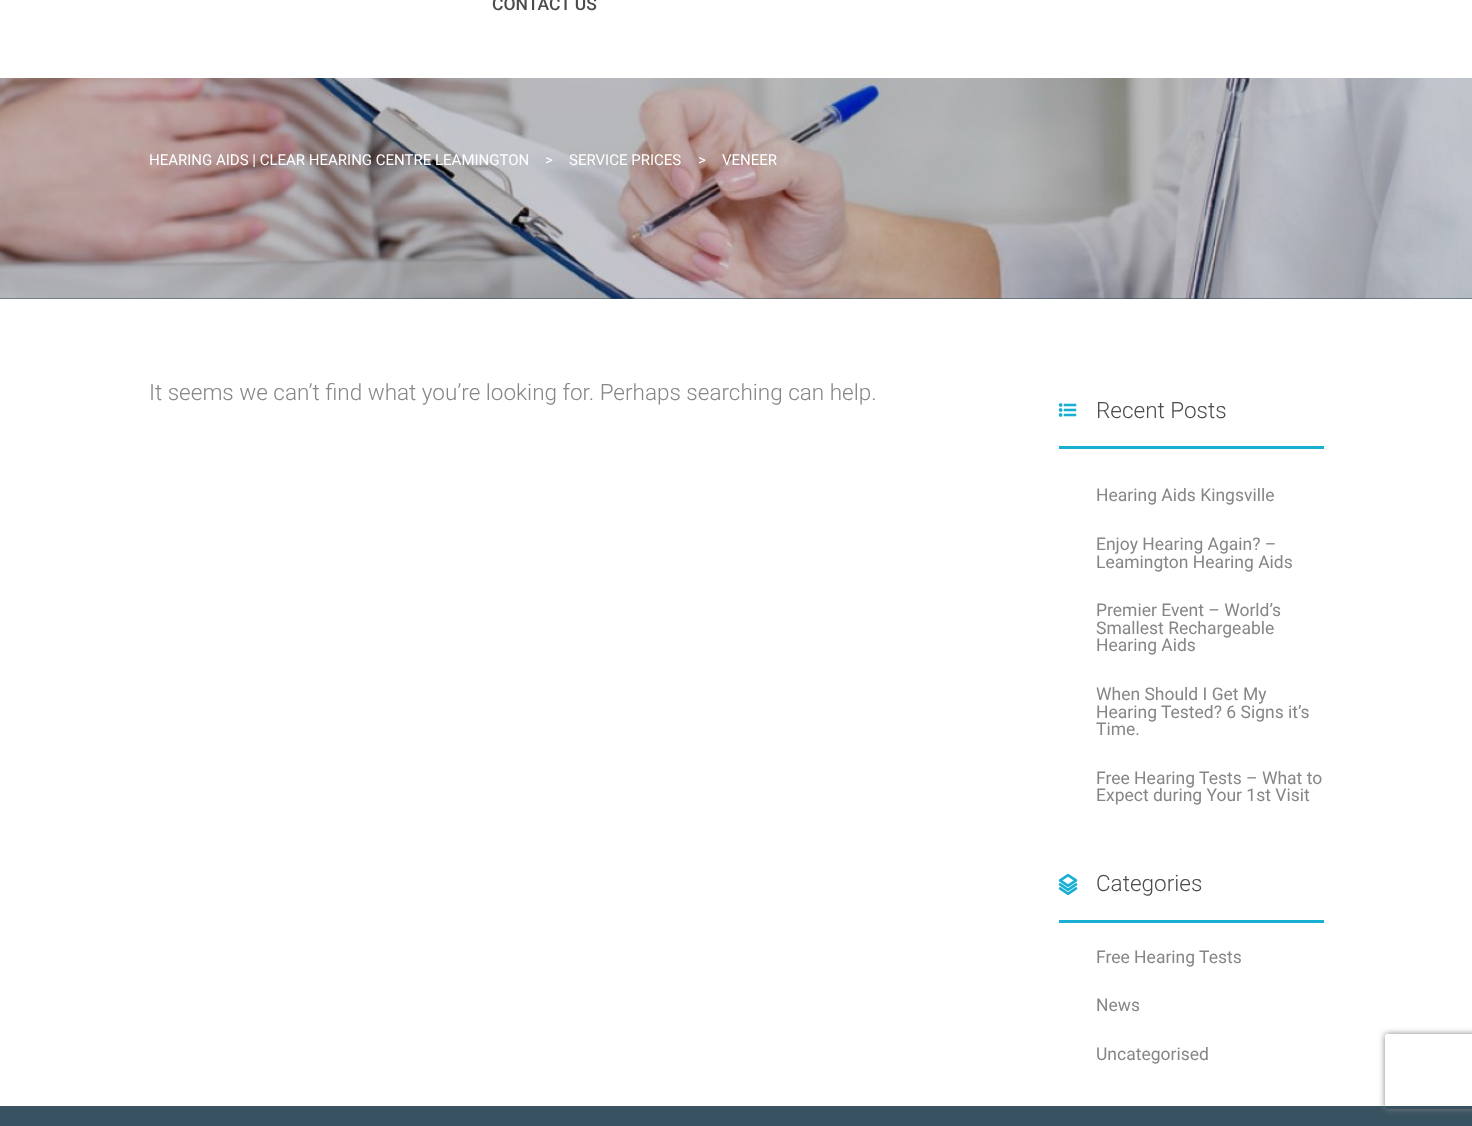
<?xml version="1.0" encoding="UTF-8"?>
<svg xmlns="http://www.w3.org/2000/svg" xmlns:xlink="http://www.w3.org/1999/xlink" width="1472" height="1126">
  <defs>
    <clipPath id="clip1"><path d="M 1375 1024 h 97 v 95 h -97 z m 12.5 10 h 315 c 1.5 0 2.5 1 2.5 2.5 v 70 c 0 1.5 -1 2.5 -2.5 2.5 h -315 c -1.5 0 -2.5 -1 -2.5 -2.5 v -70 c 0 -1.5 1 -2.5 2.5 -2.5 z" clip-rule="evenodd" /></clipPath>
  </defs>
  <rect width="100%" height="100%" fill="#ffffff" />
  <rect y="298" width="1472" height="1" fill="#2b4859" />
  <image x="0" y="78" width="1472" height="221" xlink:href="image1.png" />
  <rect x="1059" y="446" width="265" height="3" fill="#18afd3" />
  <image x="1058" y="403" width="19" height="14" xlink:href="image2.png" />
  <rect x="1059" y="920" width="265" height="3" fill="#18afd3" />
  <image x="1058" y="873" width="20" height="22" xlink:href="image3.png" />
  <rect y="1106" width="1472" height="20" fill="#395261" />
  <g clip-path="url(#clip1)">
    <rect x="1385" y="1034" width="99" height="75" rx="2.5" fill="#808080" filter="blur(3px)" />
  </g>
  <text x="492" y="10" style="font-family: Roboto; font-size: 17.5px; font-weight: 500; fill: #4c4c4c">CONTACT US</text>
  <text x="149" y="165" style="font-family: Roboto; font-size: 15px; fill: #ffffff">HEARING AIDS | CLEAR HEARING CENTRE LEAMINGTON</text>
  <text x="545" y="165" style="font-family: Roboto; font-size: 15px; fill: #ffffff">&gt;</text>
  <text x="569" y="165" style="font-family: Roboto; font-size: 15px; fill: #ffffff">SERVICE PRICES</text>
  <text x="698" y="165" style="font-family: Roboto; font-size: 15px; fill: #ffffff">&gt;</text>
  <text x="722" y="165" style="font-family: Roboto; font-size: 15px; fill: #ffffff">VENEER</text>
  <text x="149" y="400" style="font-family: Roboto; font-size: 22.5px; font-weight: 300; fill: #868686">It seems we can’t find what you’re looking for. Perhaps searching can help.</text>
  <text x="1096" y="418" style="font-family: Roboto; font-size: 22.5px; font-weight: 300; fill: #4c4c4c">Recent Posts</text>
  <text x="1096" y="501" style="font-family: Roboto; font-size: 17.5px; fill: #868686">Hearing Aids Kingsville</text>
  <text x="1096" y="550" style="font-family: Roboto; font-size: 17.5px; fill: #868686">Enjoy Hearing Again? –</text>
  <text x="1096" y="568" style="font-family: Roboto; font-size: 17.5px; fill: #868686">Leamington Hearing Aids</text>
  <text x="1096" y="616" style="font-family: Roboto; font-size: 17.5px; fill: #868686">Premier Event – World’s</text>
  <text x="1096" y="634" style="font-family: Roboto; font-size: 17.5px; fill: #868686">Smallest Rechargeable</text>
  <text x="1096" y="651" style="font-family: Roboto; font-size: 17.5px; fill: #868686">Hearing Aids</text>
  <text x="1096" y="700" style="font-family: Roboto; font-size: 17.5px; fill: #868686">When Should I Get My</text>
  <text x="1096" y="718" style="font-family: Roboto; font-size: 17.5px; fill: #868686">Hearing Tested? 6 Signs it’s</text>
  <text x="1096" y="735" style="font-family: Roboto; font-size: 17.5px; fill: #868686">Time.</text>
  <text x="1096" y="784" style="font-family: Roboto; font-size: 17.5px; fill: #868686">Free Hearing Tests – What to</text>
  <text x="1096" y="801" style="font-family: Roboto; font-size: 17.5px; fill: #868686">Expect during Your 1st Visit</text>
  <text x="1096" y="891" style="font-family: Roboto; font-size: 22.5px; font-weight: 300; fill: #4c4c4c">Categories</text>
  <text x="1096" y="963" style="font-family: Roboto; font-size: 17.5px; fill: #868686">Free Hearing Tests</text>
  <text x="1096" y="1011" style="font-family: Roboto; font-size: 17.5px; fill: #868686">News</text>
  <text x="1096" y="1060" style="font-family: Roboto; font-size: 17.5px; fill: #868686">Uncategorised</text>
</svg>
